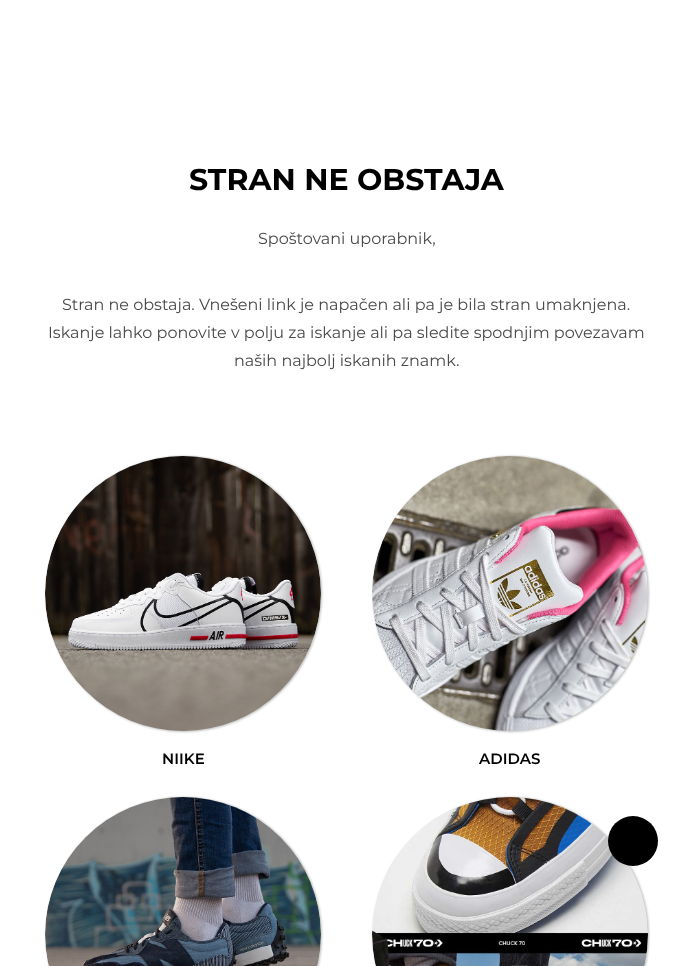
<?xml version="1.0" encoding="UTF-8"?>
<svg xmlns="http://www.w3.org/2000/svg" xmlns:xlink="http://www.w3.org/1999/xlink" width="693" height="966">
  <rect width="100%" height="100%" fill="#ffffff" />
  <rect x="46" y="456" width="276" height="276" rx="138" fill="#000000" fill-opacity="0.25" filter="blur(1px)" />
  <image x="45" y="456" width="276" height="275" xlink:href="image1.png" />
  <rect x="373" y="456" width="276" height="276" rx="138" fill="#000000" fill-opacity="0.25" filter="blur(1px)" />
  <image x="372" y="456" width="276" height="275" xlink:href="image2.png" />
  <rect x="46" y="797" width="276" height="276" rx="138" fill="#000000" fill-opacity="0.25" filter="blur(1px)" />
  <image x="45" y="797" width="276" height="169" xlink:href="image3.png" />
  <rect x="373" y="797" width="276" height="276" rx="138" fill="#000000" fill-opacity="0.25" filter="blur(1px)" />
  <image x="372" y="797" width="276" height="169" xlink:href="image4.png" />
  <circle cx="633" cy="841" r="25" fill="#000000" />
  <text x="189" y="190" style="font-family: Montserrat; font-size: 30px; font-weight: bold; fill: #000000">STRAN NE OBSTAJA</text>
  <text x="258" y="244" style="font-family: Montserrat; font-size: 16px; fill: #494949">Spoštovani uporabnik,</text>
  <text x="62" y="310" style="font-family: Montserrat; font-size: 16px; fill: #494949">Stran ne obstaja. Vnešeni link je napačen ali pa je bila stran umaknjena.</text>
  <text x="48" y="338" style="font-family: Montserrat; font-size: 16px; fill: #494949">Iskanje lahko ponovite v polju za iskanje ali pa sledite spodnjim povezavam</text>
  <text x="234" y="366" style="font-family: Montserrat; font-size: 16px; fill: #494949">naših najbolj iskanih znamk.</text>
  <text x="162" y="764" style="font-family: Montserrat; font-size: 15px; font-weight: 600; fill: #000000">NIIKE</text>
  <text x="479" y="764" style="font-family: Montserrat; font-size: 15px; font-weight: 600; fill: #000000">ADIDAS</text>
</svg>
